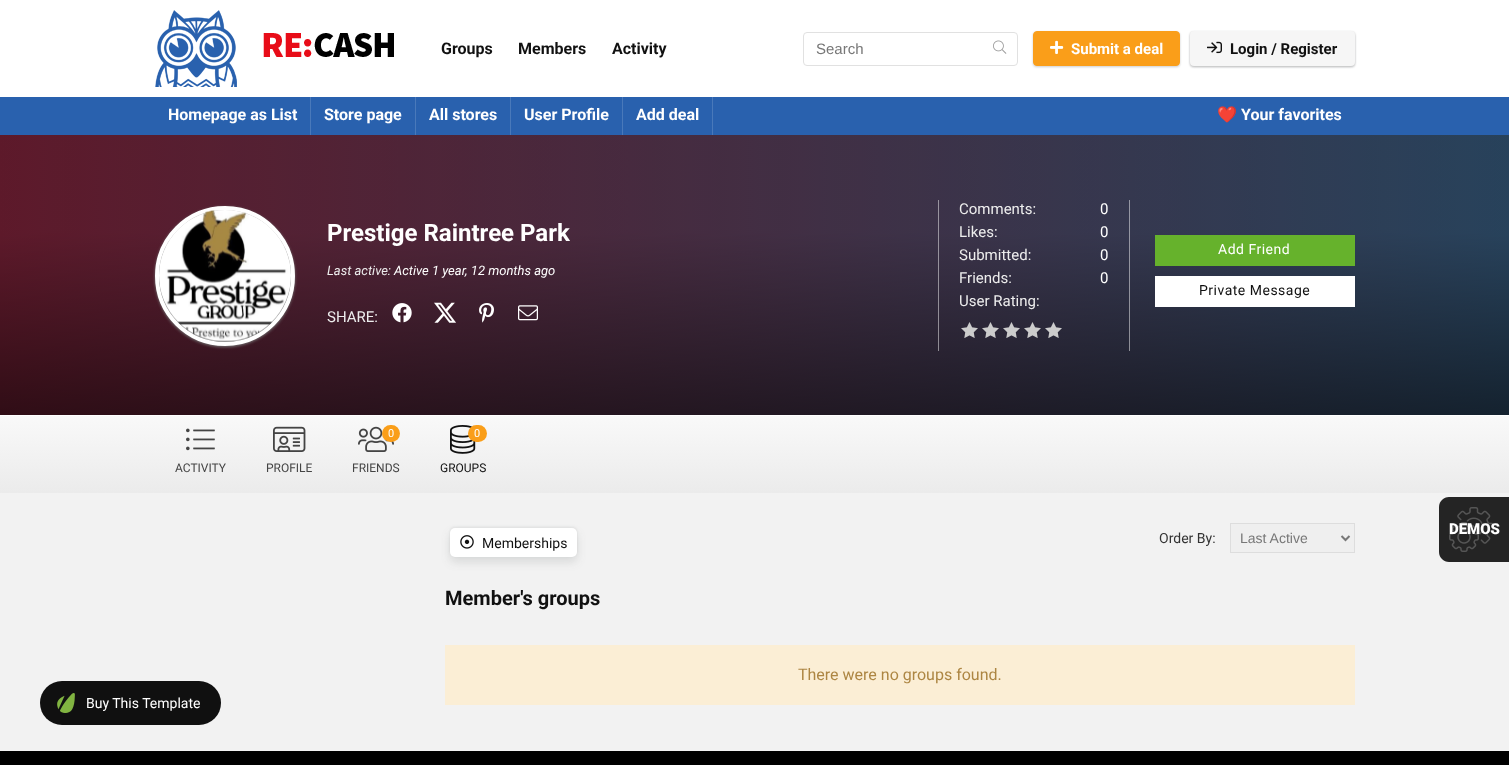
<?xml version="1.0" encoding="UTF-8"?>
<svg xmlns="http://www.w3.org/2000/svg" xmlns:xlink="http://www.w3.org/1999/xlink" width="1509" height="765">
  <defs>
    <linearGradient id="g1" gradientUnits="userSpaceOnUse" x1="0" y1="275" x2="1509" y2="275"><stop offset="0" stop-color="#89253e" /><stop offset="1" stop-color="#3a6186" /></linearGradient>
    <linearGradient id="g2" gradientUnits="userSpaceOnUse" x1="755" y1="135" x2="755" y2="415"><stop offset="0.35" stop-color="#000000" stop-opacity="0.32" /><stop offset="1" stop-color="#000000" stop-opacity="0.65" /></linearGradient>
    <linearGradient id="g3" gradientUnits="userSpaceOnUse" x1="755" y1="415" x2="755" y2="493"><stop offset="0.01" stop-color="#ffffff" /><stop offset="0.01" stop-color="#f9f9f9" /><stop offset="1" stop-color="#ebebeb" /></linearGradient>
  </defs>
  <rect width="100%" height="100%" fill="#f2f2f2" />
  <rect width="1509" height="97" fill="#ffffff" />
  <image x="155" y="10" width="239" height="77" xlink:href="image1.png" />
  <rect x="803.5" y="32.5" width="214" height="33" rx="3.5" fill="none" stroke="#e1e1e1" />
  <image x="993" y="40" width="14" height="14" xlink:href="image2.png" />
  <rect x="1033" y="32" width="147" height="35" rx="4" fill="#000000" fill-opacity="0.2" filter="blur(1px)" />
  <rect x="1033.5" y="31.5" width="146" height="34" rx="3.5" fill="#fa9e19" stroke="#fa9e19" />
  <image x="1050" y="40" width="14" height="14" xlink:href="image3.png" />
  <rect x="1190" y="32" width="165" height="35" rx="4" fill="#000000" fill-opacity="0.08" filter="blur(1px)" />
  <rect x="1190" y="32" width="165" height="35" rx="4" fill="#3c4043" fill-opacity="0.3" filter="blur(1px)" />
  <rect x="1190" y="31" width="165" height="35" rx="4" fill="#f6f6f6" />
  <image x="1207" y="41" width="15" height="13" xlink:href="image4.png" />
  <rect y="97" width="1509" height="38" fill="#2961ae" />
  <rect x="310" y="97" width="1" height="38" fill="#4979ba" />
  <rect x="415" y="97" width="1" height="38" fill="#4979ba" />
  <rect x="510" y="97" width="1" height="38" fill="#4979ba" />
  <rect x="622" y="97" width="1" height="38" fill="#4979ba" />
  <rect x="712" y="97" width="1" height="38" fill="#4979ba" />
  <rect y="135" width="1509" height="280" fill="url(#g1)" />
  <rect y="135" width="1509" height="280" fill="url(#g2)" />
  <rect x="155" y="207" width="140" height="140" rx="70" fill="#777777" filter="blur(1.5px)" />
  <circle cx="225" cy="276" r="68" fill="none" stroke="#ffffff" stroke-width="4" />
  <image x="159" y="210" width="132" height="132" xlink:href="image5.png" />
  <image x="392" y="303" width="20" height="20" xlink:href="image6.png" />
  <image x="434" y="302" width="22" height="21" xlink:href="image7.png" />
  <image x="479" y="303" width="15" height="20" xlink:href="image8.png" />
  <image x="518" y="305" width="20" height="16" xlink:href="image9.png" />
  <rect x="1129" y="200" width="1" height="151" fill="#ffffff" fill-opacity="0.48" />
  <rect x="938" y="200" width="1" height="151" fill="#ffffff" fill-opacity="0.48" />
  <image x="961" y="322" width="17" height="16" xlink:href="image10.png" />
  <image x="982" y="322" width="17" height="16" xlink:href="image11.png" />
  <image x="1003" y="322" width="17" height="16" xlink:href="image12.png" />
  <image x="1024" y="322" width="17" height="16" xlink:href="image13.png" />
  <image x="1045" y="322" width="17" height="16" xlink:href="image14.png" />
  <rect x="1155" y="235" width="200" height="31" fill="#66b22c" />
  <rect x="1155" y="276" width="200" height="31" fill="#ffffff" />
  <rect y="415" width="1509" height="78" fill="url(#g3)" />
  <image x="186" y="428" width="29" height="23" xlink:href="image15.png" />
  <image x="273" y="426" width="33" height="26" xlink:href="image16.png" />
  <image x="358" y="426" width="36" height="26" xlink:href="image17.png" />
  <rect x="382" y="425" width="18" height="17" rx="8.5" fill="#fa9e19" />
  <image x="450" y="425" width="26" height="29" xlink:href="image18.png" />
  <rect x="468" y="425" width="19" height="17" rx="8.5" fill="#fa9e19" />
  <rect x="450" y="533" width="127" height="29" rx="5" fill="#3c4043" fill-opacity="0.14" filter="blur(5px)" />
  <rect x="450" y="527" width="127" height="29" rx="5" fill="#3c4043" fill-opacity="0.1" filter="blur(1px)" />
  <rect x="450" y="528" width="127" height="29" rx="5" fill="#ffffff" />
  <image x="460" y="535" width="14" height="14" xlink:href="image19.png" />
  <rect x="1230.5" y="523.5" width="124" height="29" fill="#efefef" stroke="#dddddd" />
  <path d="M 1341.5 536 l 4 4 l 4 -4" fill="none" stroke="#777777" stroke-width="2" />
  <rect x="445" y="645" width="910" height="60" fill="#fbeed5" />
  <rect y="751" width="1509" height="14" fill="#000000" />
  <path d="M 1449 497 h 60 v 65 h -60 c -5.5 0 -10 -4.5 -10 -10 v -45 c 0 -5.5 4.5 -10 10 -10 z" fill="#242424" />
  <image x="1449" y="507" width="45" height="45" xlink:href="image20.png" />
  <rect x="40" y="681" width="181" height="44" rx="22" fill="#101010" />
  <image x="57" y="693" width="18" height="20" xlink:href="image21.png" />
  <text x="441" y="54" style="font-family: Roboto; font-size: 16px; font-weight: bold; fill: #111111">Groups</text>
  <text x="518" y="54" style="font-family: Roboto; font-size: 16px; font-weight: bold; fill: #111111">Members</text>
  <text x="612" y="54" style="font-family: Roboto; font-size: 16px; font-weight: bold; fill: #111111">Activity</text>
  <text x="816" y="54" style="font-family: Liberation Sans; font-size: 15px; fill: #777777">Search</text>
  <text x="1071" y="54" style="font-family: Roboto; font-size: 15px; font-weight: bold; fill: #ffffff">Submit a deal</text>
  <text x="1230" y="54" style="font-family: Roboto; font-size: 15px; font-weight: bold; fill: #111111">Login / Register</text>
  <text x="168" y="120" style="font-family: Roboto; font-size: 16px; font-weight: bold; fill: #ffffff">Homepage as List</text>
  <text x="324" y="120" style="font-family: Roboto; font-size: 16px; font-weight: bold; fill: #ffffff">Store page</text>
  <text x="429" y="120" style="font-family: Roboto; font-size: 16px; font-weight: bold; fill: #ffffff">All stores</text>
  <text x="524" y="120" style="font-family: Roboto; font-size: 16px; font-weight: bold; fill: #ffffff">User Profile</text>
  <text x="636" y="120" style="font-family: Roboto; font-size: 16px; font-weight: bold; fill: #ffffff">Add deal</text>
  <text x="1217" y="120" style="font-family: Noto Color Emoji; font-size: 16px; font-weight: bold; fill: #ffffff">❤️</text>
  <text x="1241" y="120" style="font-family: Roboto; font-size: 16px; font-weight: bold; fill: #ffffff">Your favorites</text>
  <text x="327" y="241" style="font-family: Roboto; font-size: 24px; font-weight: bold; fill: #ffffff">Prestige Raintree Park</text>
  <text x="327" y="275" style="font-family: Roboto; font-size: 13px; font-style: italic; fill: #ededed">Last active:</text>
  <text x="394" y="275" style="font-family: Roboto; font-size: 13px; font-style: italic; fill: #ffffff">Active 1 year, 12 months ago</text>
  <text x="327" y="322" style="font-family: Roboto; font-size: 15px; fill: #ededed">SHARE:</text>
  <text x="959" y="214" style="font-family: Roboto; font-size: 15px; fill: #ededed">Comments:</text>
  <text x="1100" y="214" style="font-family: Roboto; font-size: 15px; fill: #ffffff">0</text>
  <text x="959" y="237" style="font-family: Roboto; font-size: 15px; fill: #ededed">Likes:</text>
  <text x="1100" y="237" style="font-family: Roboto; font-size: 15px; fill: #ffffff">0</text>
  <text x="959" y="260" style="font-family: Roboto; font-size: 15px; fill: #ededed">Submitted:</text>
  <text x="1100" y="260" style="font-family: Roboto; font-size: 15px; fill: #ffffff">0</text>
  <text x="959" y="283" style="font-family: Roboto; font-size: 15px; fill: #ededed">Friends:</text>
  <text x="1100" y="283" style="font-family: Roboto; font-size: 15px; fill: #ffffff">0</text>
  <text x="959" y="306" style="font-family: Roboto; font-size: 15px; fill: #ededed">User Rating:</text>
  <text x="1218" y="254" style="font-family: Roboto; font-size: 14px; letter-spacing: 0.5px; fill: #ffffff">Add Friend</text>
  <text x="1199" y="295" style="font-family: Roboto; font-size: 14px; letter-spacing: 0.5px; fill: #111111">Private Message</text>
  <text x="175" y="472" style="font-family: Roboto; font-size: 12px; fill: #444444">ACTIVITY</text>
  <text x="266" y="472" style="font-family: Roboto; font-size: 12px; fill: #444444">PROFILE</text>
  <text x="388" y="437" style="font-family: Roboto; font-size: 11px; fill: #ffffff">0</text>
  <text x="352" y="472" style="font-family: Roboto; font-size: 12px; fill: #444444">FRIENDS</text>
  <text x="474" y="437" style="font-family: Roboto; font-size: 11px; fill: #ffffff">0</text>
  <text x="440" y="472" style="font-family: Roboto; font-size: 12px; fill: #111111">GROUPS</text>
  <text x="482" y="548" style="font-family: Roboto; font-size: 14px; fill: #111111">Memberships</text>
  <text x="1159" y="543" style="font-family: Roboto; font-size: 14px; fill: #333333">Order By:</text>
  <text x="1240" y="543" style="font-family: Liberation Sans; font-size: 14px; fill: #777777">Last Active</text>
  <text x="445" y="605" style="font-family: Roboto; font-size: 20px; font-weight: bold; fill: #111111">Member's groups</text>
  <text x="798" y="680" style="font-family: Roboto; font-size: 16px; fill: #ad8643">There were no groups found.</text>
  <text x="1449" y="534" style="font-family: Roboto; font-size: 15px; font-weight: 900; fill: #ffffff">DEMOS</text>
  <text x="86" y="708" style="font-family: Roboto; font-size: 14px; fill: #ffffff">Buy This Template</text>
</svg>
